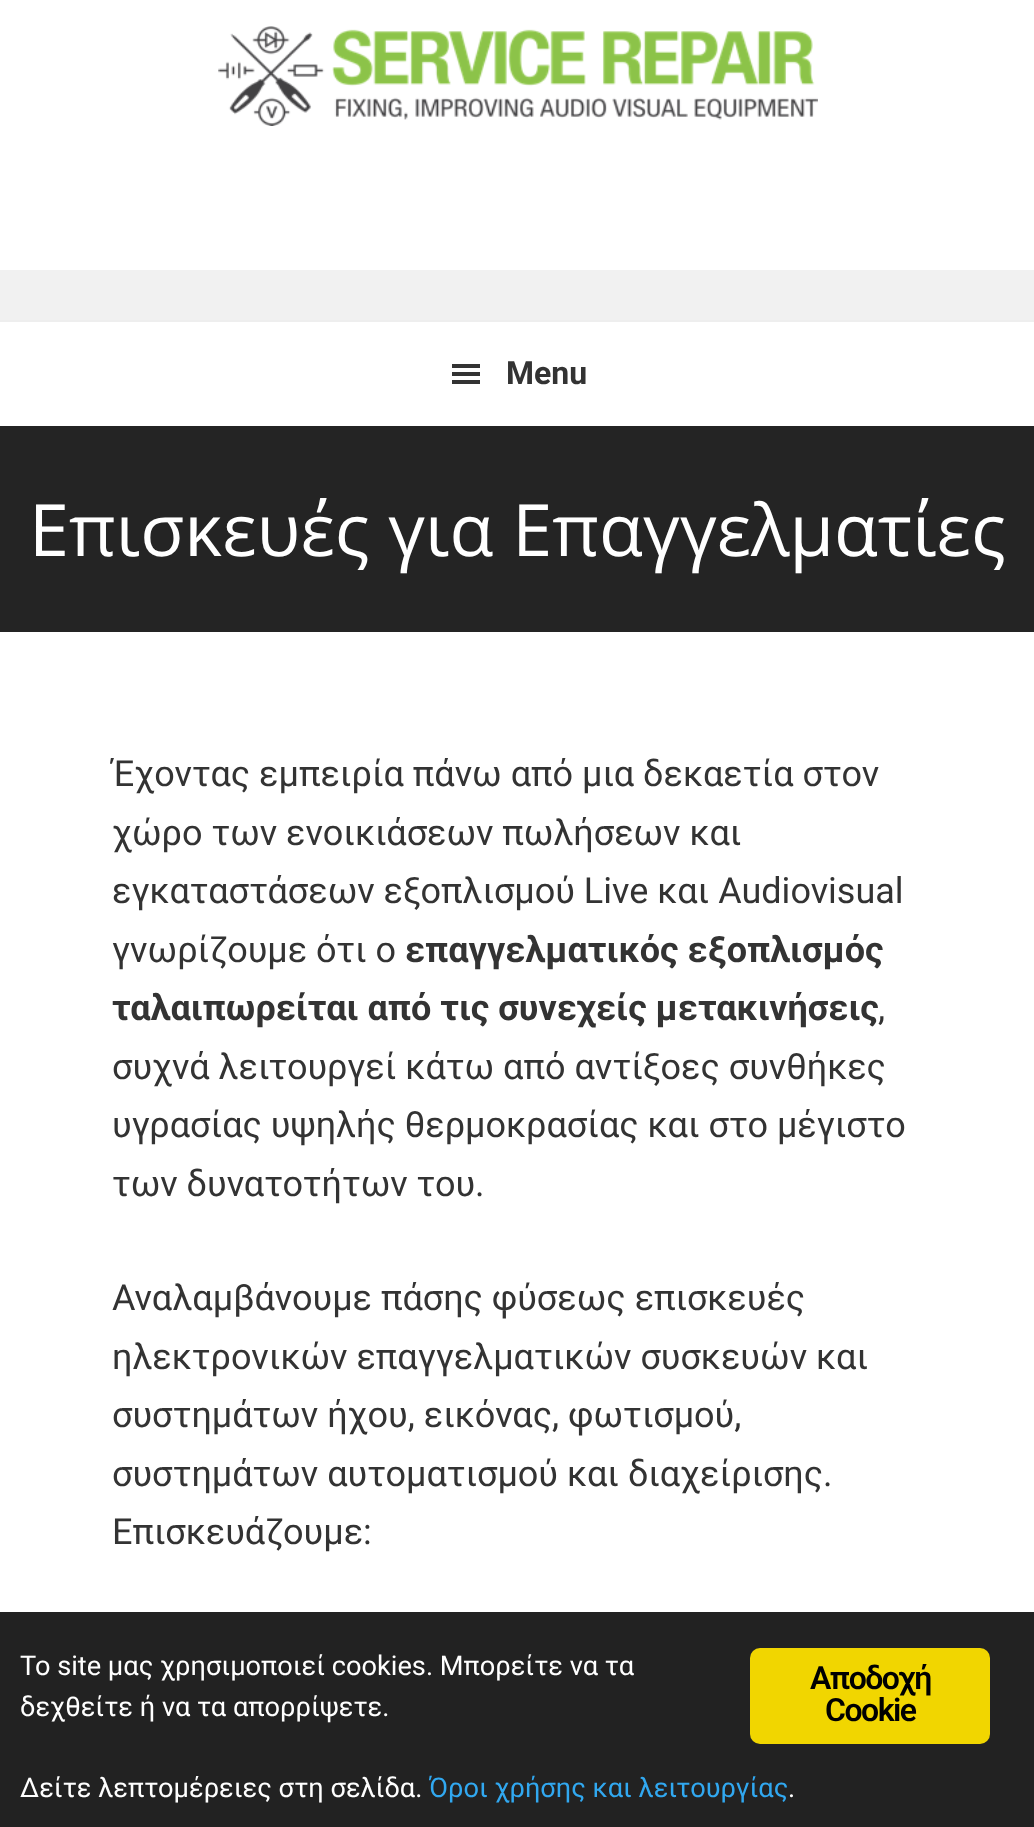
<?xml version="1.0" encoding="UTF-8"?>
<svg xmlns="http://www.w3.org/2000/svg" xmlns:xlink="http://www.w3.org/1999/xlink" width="1034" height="1827">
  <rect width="100%" height="100%" fill="#ffffff" />
  <rect y="270" width="1034" height="50" fill="#f1f1f1" />
  <image x="218" y="26" width="600" height="100" xlink:href="image1.png" />
  <rect y="320" width="1034" height="2" fill="#eeeeee" />
  <image x="452" y="364" width="28" height="20" xlink:href="image2.png" />
  <rect y="426" width="1034" height="206" fill="#242424" />
  <rect y="1612" width="1034" height="215" fill="#222222" />
  <rect x="750" y="1648" width="240" height="96" rx="10" fill="#f1d600" />
  <text x="506" y="384" style="font-family: Roboto; font-size: 32px; font-weight: bold; fill: #333333">Menu</text>
  <text x="29" y="556" style="font-family: Open Sans; font-size: 72px; fill: #ffffff">Επισκευές για Επαγγελματίες</text>
  <text x="112" y="786" style="font-family: Roboto; font-size: 36px; fill: #333333">Έχοντας εμπειρία πάνω από μια δεκαετία στον</text>
  <text x="112" y="845" style="font-family: Roboto; font-size: 36px; fill: #333333">χώρο των ενοικιάσεων πωλήσεων και</text>
  <text x="112" y="903" style="font-family: Roboto; font-size: 36px; fill: #333333">εγκαταστάσεων εξοπλισμού Live και Audiovisual</text>
  <text x="112" y="962" style="font-family: Roboto; font-size: 36px; fill: #333333">γνωρίζουμε ότι ο</text>
  <text x="405" y="962" style="font-family: Roboto; font-size: 36px; font-weight: bold; fill: #333333">επαγγελματικός εξοπλισμός</text>
  <text x="112" y="1020" style="font-family: Roboto; font-size: 36px; font-weight: bold; fill: #333333">ταλαιπωρείται από τις συνεχείς μετακινήσεις</text>
  <text x="878" y="1020" style="font-family: Roboto; font-size: 36px; fill: #333333">,</text>
  <text x="112" y="1079" style="font-family: Roboto; font-size: 36px; fill: #333333">συχνά λειτουργεί κάτω από αντίξοες συνθήκες</text>
  <text x="112" y="1137" style="font-family: Roboto; font-size: 36px; fill: #333333">υγρασίας υψηλής θερμοκρασίας και στο μέγιστο</text>
  <text x="112" y="1196" style="font-family: Roboto; font-size: 36px; fill: #333333">των δυνατοτήτων του.</text>
  <text x="112" y="1310" style="font-family: Roboto; font-size: 36px; fill: #333333">Αναλαμβάνουμε πάσης φύσεως επισκευές</text>
  <text x="112" y="1369" style="font-family: Roboto; font-size: 36px; fill: #333333">ηλεκτρονικών επαγγελματικών συσκευών και</text>
  <text x="112" y="1427" style="font-family: Roboto; font-size: 36px; fill: #333333">συστημάτων ήχου, εικόνας, φωτισμού,</text>
  <text x="112" y="1486" style="font-family: Roboto; font-size: 36px; fill: #333333">συστημάτων αυτοματισμού και διαχείρισης.</text>
  <text x="112" y="1544" style="font-family: Roboto; font-size: 36px; fill: #333333">Επισκευάζουμε:</text>
  <text x="20" y="1675" style="font-family: Roboto; font-size: 27.2px; fill: #ffffff">To site μας χρησιμοποιεί cookies. Μπορείτε να τα</text>
  <text x="20" y="1716" style="font-family: Roboto; font-size: 27.2px; fill: #ffffff">δεχθείτε ή να τα απορρίψετε.</text>
  <text x="20" y="1797" style="font-family: Roboto; font-size: 27.2px; fill: #ffffff">Δείτε λεπτομέρειες στη σελίδα.</text>
  <text x="429" y="1797" style="font-family: Roboto; font-size: 27.2px; fill: #31a8f0">Όροι χρήσης και λειτουργίας</text>
  <text x="788" y="1797" style="font-family: Roboto; font-size: 27.2px; fill: #ffffff">.</text>
  <text x="810" y="1689" style="font-family: Roboto; font-size: 32px; font-weight: 600; letter-spacing: -1.5px; fill: #000000">Αποδοχή</text>
  <text x="825" y="1721" style="font-family: Roboto; font-size: 32px; font-weight: 600; letter-spacing: -1.5px; fill: #000000">Cookie</text>
</svg>
